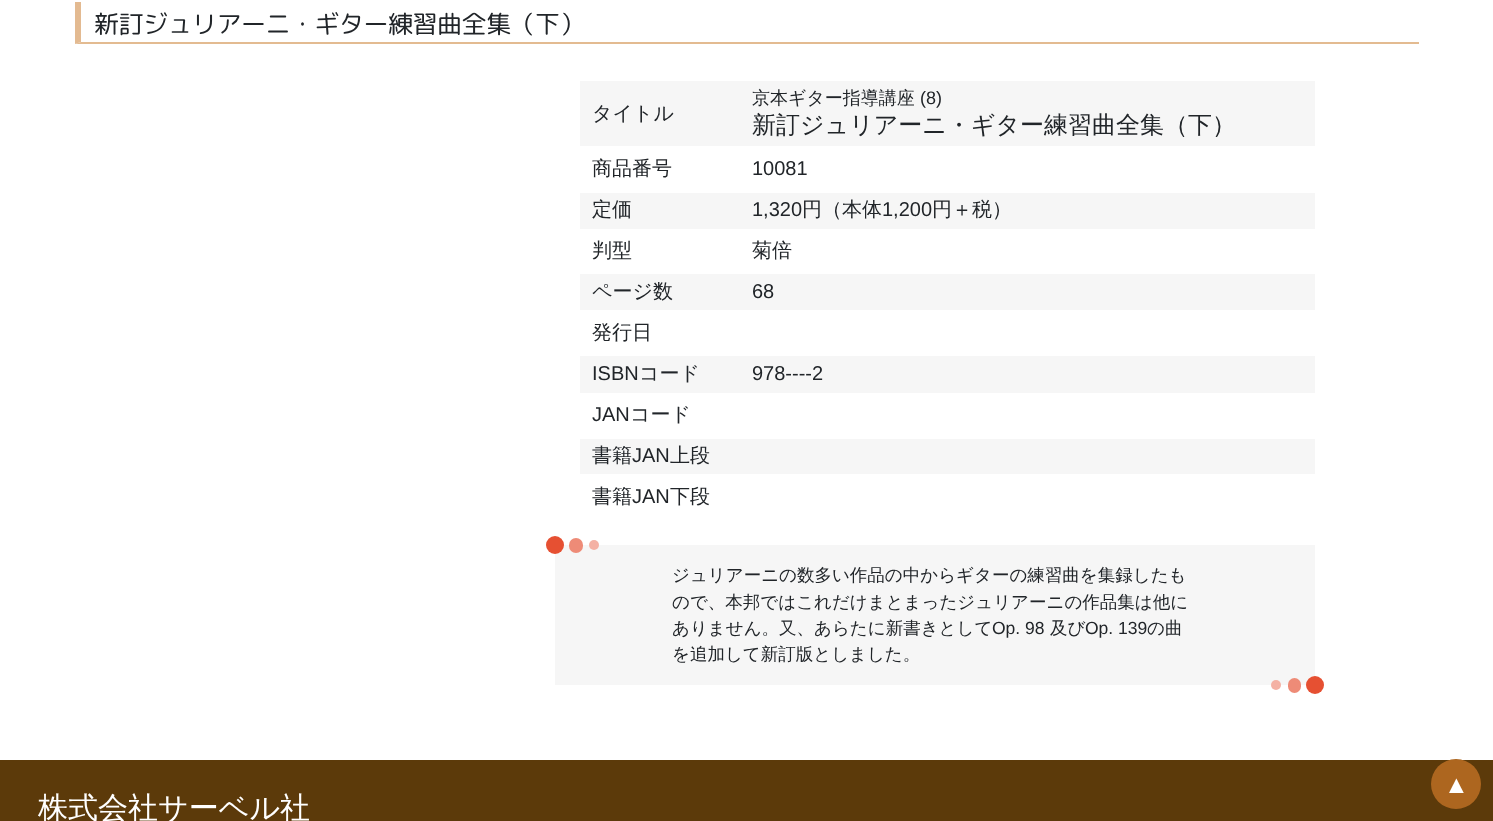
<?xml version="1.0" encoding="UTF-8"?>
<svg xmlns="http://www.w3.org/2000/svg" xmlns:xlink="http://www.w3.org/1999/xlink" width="1493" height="821">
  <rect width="100%" height="100%" fill="#ffffff" />
  <path d="M 1419 44 h -1344 l 6 -2 h 1338 z" fill="#e3bb91" />
  <path d="M 75 44 v -42 h 6 v 40 z" fill="#e0b385" fill-opacity="0.9" />
  <rect x="580" y="81" width="735" height="65" fill="#f6f6f6" />
  <rect x="580" y="193" width="735" height="36" fill="#f6f6f6" />
  <rect x="580" y="274" width="735" height="36" fill="#f6f6f6" />
  <rect x="580" y="356" width="735" height="37" fill="#f6f6f6" />
  <rect x="580" y="439" width="735" height="35" fill="#f6f6f6" />
  <rect x="555" y="545" width="760" height="140" fill="#f6f6f6" />
  <circle cx="594" cy="545" r="5" fill="#f4b1a4" />
  <rect x="569" y="538" width="14" height="15" rx="7" fill="#ee8b77" />
  <circle cx="555" cy="545" r="9" fill="#e65032" />
  <circle cx="1276" cy="685" r="5" fill="#f4b1a4" />
  <rect x="1288" y="678" width="13" height="15" rx="6.5" fill="#ee8b77" />
  <circle cx="1315" cy="685" r="9" fill="#e65032" />
  <rect y="760" width="1493" height="61" fill="#5c3a0a" />
  <circle cx="1456" cy="784" r="25" fill="#ad661f" />
  <text x="94" y="33" style="font-family: 'Rounded Mplus 1c'; font-size: 25px; letter-spacing: -0.5px; fill: #212529">新訂ジュリアーニ・ギター練習曲全集（下）</text>
  <text x="592" y="120" style="font-family: WenQuanYi Zen Hei; font-size: 20px; font-weight: 500; fill: #212529">タイトル</text>
  <text x="752" y="104" style="font-family: WenQuanYi Zen Hei; font-size: 18px; font-weight: 500; fill: #212529">京本ギター指導講座</text>
  <text x="920" y="104" style="font-family: Liberation Sans; font-size: 18px; fill: #212529">(8)</text>
  <text x="752" y="133" style="font-family: WenQuanYi Zen Hei; font-size: 24px; font-weight: 500; fill: #212529">新訂ジュリアーニ・ギター練習曲全集（下）</text>
  <text x="592" y="175" style="font-family: WenQuanYi Zen Hei; font-size: 20px; font-weight: 500; fill: #212529">商品番号</text>
  <text x="752" y="175" style="font-family: Liberation Sans; font-size: 20px; fill: #212529">10081</text>
  <text x="592" y="216" style="font-family: WenQuanYi Zen Hei; font-size: 20px; font-weight: 500; fill: #212529">定価</text>
  <text x="752" y="216" style="font-family: Liberation Sans; font-size: 20px; fill: #212529">1,320</text>
  <text x="802" y="216" style="font-family: WenQuanYi Zen Hei; font-size: 20px; font-weight: 500; fill: #212529">円（本体</text>
  <text x="882" y="216" style="font-family: Liberation Sans; font-size: 20px; fill: #212529">1,200</text>
  <text x="932" y="216" style="font-family: WenQuanYi Zen Hei; font-size: 20px; font-weight: 500; fill: #212529">円＋税）</text>
  <text x="592" y="257" style="font-family: WenQuanYi Zen Hei; font-size: 20px; font-weight: 500; fill: #212529">判型</text>
  <text x="752" y="257" style="font-family: WenQuanYi Zen Hei; font-size: 20px; font-weight: 500; fill: #212529">菊倍</text>
  <text x="592" y="298" style="font-family: WenQuanYi Zen Hei; font-size: 20px; font-weight: 500; fill: #212529">ページ数</text>
  <text x="752" y="298" style="font-family: Liberation Sans; font-size: 20px; fill: #212529">68</text>
  <text x="592" y="339" style="font-family: WenQuanYi Zen Hei; font-size: 20px; font-weight: 500; fill: #212529">発行日</text>
  <text x="592" y="380" style="font-family: Liberation Sans; font-size: 20px; fill: #212529">ISBN</text>
  <text x="639" y="380" style="font-family: WenQuanYi Zen Hei; font-size: 20px; font-weight: 500; fill: #212529">コード</text>
  <text x="752" y="380" style="font-family: Liberation Sans; font-size: 20px; fill: #212529">978----2</text>
  <text x="592" y="421" style="font-family: Liberation Sans; font-size: 20px; fill: #212529">JAN</text>
  <text x="630" y="421" style="font-family: WenQuanYi Zen Hei; font-size: 20px; font-weight: 500; fill: #212529">コード</text>
  <text x="592" y="462" style="font-family: WenQuanYi Zen Hei; font-size: 20px; font-weight: 500; fill: #212529">書籍</text>
  <text x="632" y="462" style="font-family: Liberation Sans; font-size: 20px; fill: #212529">JAN</text>
  <text x="670" y="462" style="font-family: WenQuanYi Zen Hei; font-size: 20px; font-weight: 500; fill: #212529">上段</text>
  <text x="592" y="503" style="font-family: WenQuanYi Zen Hei; font-size: 20px; font-weight: 500; fill: #212529">書籍</text>
  <text x="632" y="503" style="font-family: Liberation Sans; font-size: 20px; fill: #212529">JAN</text>
  <text x="670" y="503" style="font-family: WenQuanYi Zen Hei; font-size: 20px; font-weight: 500; fill: #212529">下段</text>
  <text x="672" y="581" style="font-family: WenQuanYi Zen Hei; font-size: 17.5px; font-weight: 500; fill: #212529">ジュリアーニの数多い作品の中からギターの練習曲を集録したも</text>
  <text x="672" y="608" style="font-family: WenQuanYi Zen Hei; font-size: 17.5px; font-weight: 500; fill: #212529">ので、本邦ではこれだけまとまったジュリアーニの作品集は他に</text>
  <text x="672" y="634" style="font-family: WenQuanYi Zen Hei; font-size: 17.5px; font-weight: 500; fill: #212529">ありません。又、あらたに新書きとして</text>
  <text x="992" y="634" style="font-family: Liberation Sans; font-size: 17.5px; fill: #212529">Op. 98</text>
  <text x="1050" y="634" style="font-family: WenQuanYi Zen Hei; font-size: 17.5px; font-weight: 500; fill: #212529">及び</text>
  <text x="1085" y="634" style="font-family: Liberation Sans; font-size: 17.5px; fill: #212529">Op. 139</text>
  <text x="1147" y="634" style="font-family: WenQuanYi Zen Hei; font-size: 17.5px; font-weight: 500; fill: #212529">の曲</text>
  <text x="672" y="660" style="font-family: WenQuanYi Zen Hei; font-size: 17.5px; font-weight: 500; fill: #212529">を追加して新訂版としました。</text>
  <text x="1444" y="793" style="font-family: Liberation Sans; font-size: 25px; fill: #ffffff">▲</text>
  <text x="38" y="818" style="font-family: WenQuanYi Zen Hei; font-size: 30px; font-weight: 500; fill: #ffffff">株式会社サーベル社</text>
</svg>
